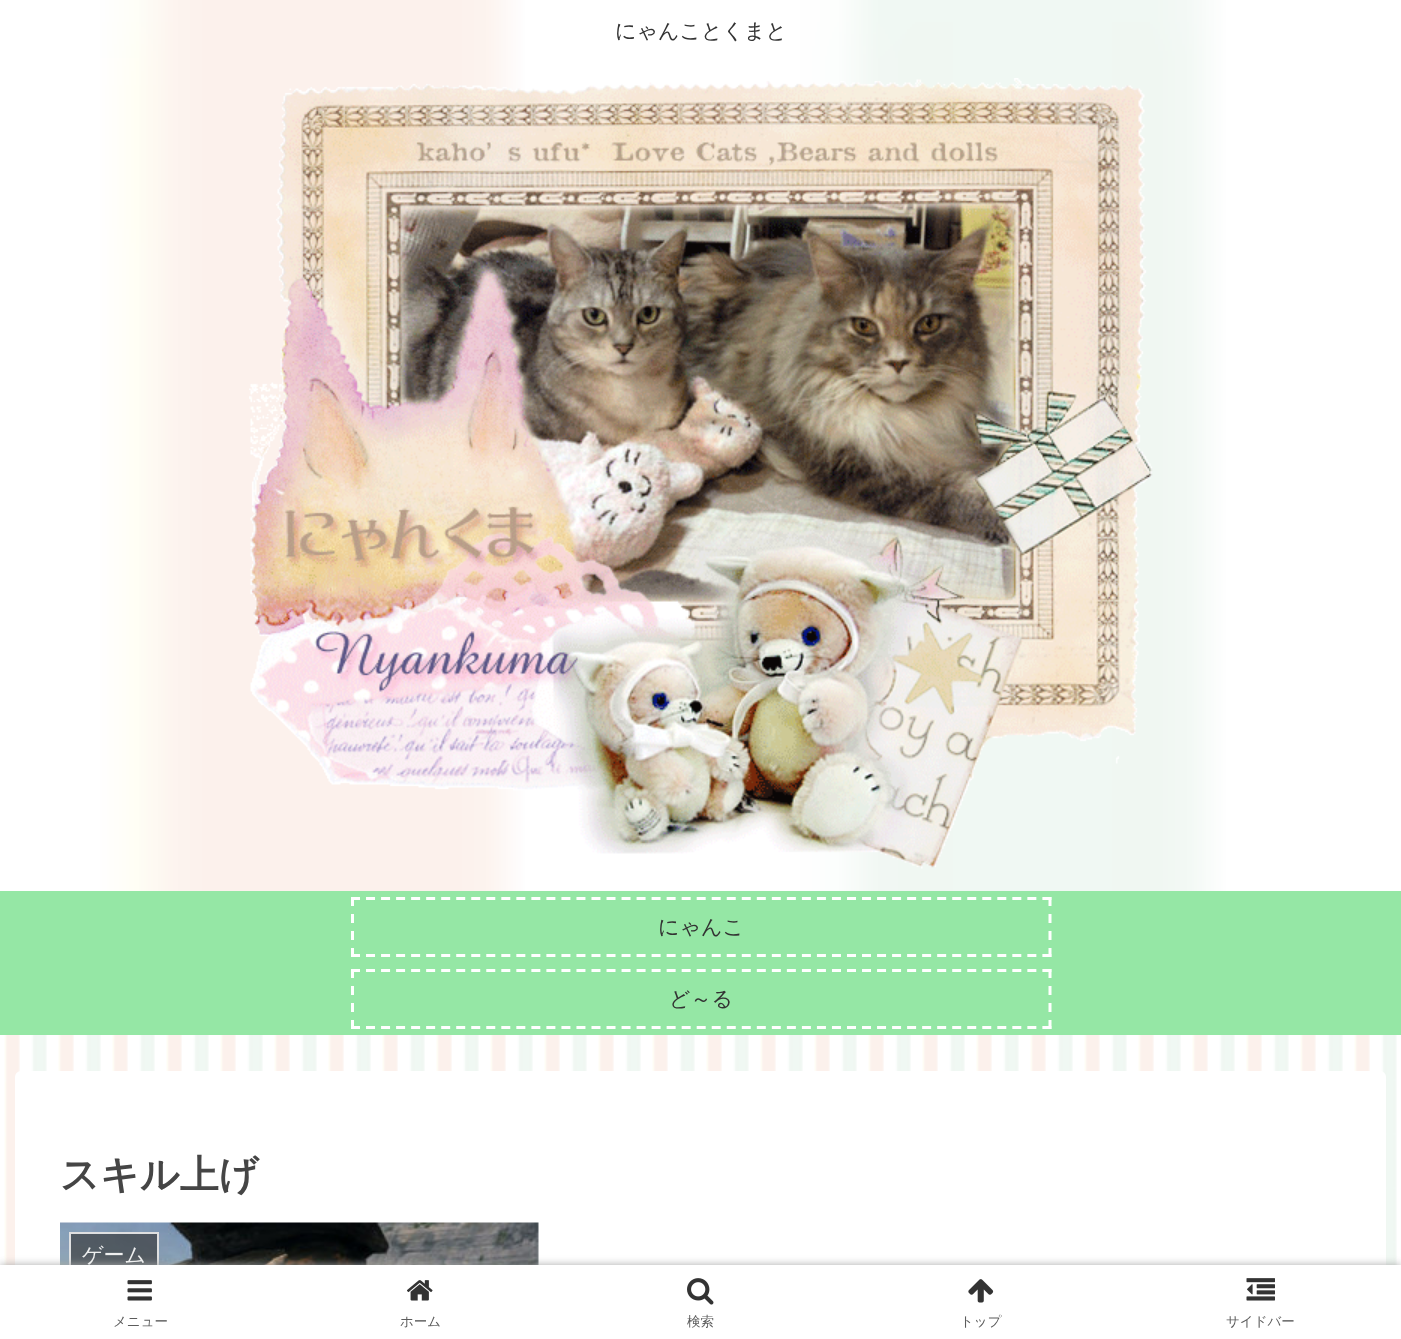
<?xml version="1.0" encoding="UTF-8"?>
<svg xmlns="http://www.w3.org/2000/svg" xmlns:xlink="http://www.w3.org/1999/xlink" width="1401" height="1339">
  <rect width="100%" height="100%" fill="#ffffff" />
  <image x="0" y="1035" width="1401" height="230" xlink:href="image1.png" />
  <image x="0" y="0" width="1401" height="891" xlink:href="image2.png" />
  <image x="249" y="78" width="904" height="791" xlink:href="image3.png" />
  <rect y="891" width="1401" height="144" fill="#95e7a5" />
  <path d="M 351 898.5 h 700.5" fill="none" stroke="#ffffff" stroke-width="3" stroke-dasharray="9 6.03" />
  <path d="M 1050 897 v 60" fill="none" stroke="#ffffff" stroke-width="3" stroke-dasharray="9 8" />
  <path d="M 351 955.5 h 700.5" fill="none" stroke="#ffffff" stroke-width="3" stroke-dasharray="9 6.03" />
  <path d="M 352.5 897 v 60" fill="none" stroke="#ffffff" stroke-width="3" stroke-dasharray="9 8" />
  <path d="M 351 970.5 h 700.5" fill="none" stroke="#ffffff" stroke-width="3" stroke-dasharray="9 6.03" />
  <path d="M 1050 969 v 60" fill="none" stroke="#ffffff" stroke-width="3" stroke-dasharray="9 8" />
  <path d="M 351 1027.5 h 700.5" fill="none" stroke="#ffffff" stroke-width="3" stroke-dasharray="9 6.03" />
  <path d="M 352.5 969 v 60" fill="none" stroke="#ffffff" stroke-width="3" stroke-dasharray="9 8" />
  <rect x="15" y="1071" width="1371" height="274" rx="6" fill="#ffffff" />
  <image x="60" y="1222" width="479" height="43" xlink:href="image4.png" />
  <rect x="69" y="1232" width="90" height="33" fill="#333333" fill-opacity="0.63" />
  <rect x="70" y="1233" width="88" height="44" fill="none" stroke="#eeeeee" stroke-opacity="0.9" stroke-width="2" />
  <rect y="1265" width="1401" height="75" fill="#a9a9a9" filter="blur(4px)" />
  <rect y="1265" width="1401" height="74" fill="#ffffff" />
  <image x="127" y="1280" width="25" height="21" xlink:href="image5.png" />
  <image x="407" y="1280" width="26" height="21" xlink:href="image6.png" />
  <image x="687" y="1278" width="27" height="27" xlink:href="image7.png" />
  <image x="968" y="1279" width="26" height="24" xlink:href="image8.png" />
  <image x="1246" y="1278" width="29" height="23" xlink:href="image9.png" />
  <text x="615" y="38" style="font-family: WenQuanYi Zen Hei; font-size: 21px; font-weight: 500; fill: #333333">にゃんことくまと</text>
  <text x="658" y="934" style="font-family: WenQuanYi Zen Hei; font-size: 21px; font-weight: 500; fill: #333333">にゃんこ</text>
  <text x="669" y="1006" style="font-family: WenQuanYi Zen Hei; font-size: 21px; font-weight: 500; fill: #333333">ど～る</text>
  <text x="60" y="1188" style="font-family: WenQuanYi Zen Hei; font-size: 39px; font-weight: bold; fill: #454545">スキル上げ</text>
  <text x="82" y="1262" style="font-family: WenQuanYi Zen Hei; font-size: 21px; font-weight: 500; fill: #eeefef">ゲーム</text>
  <text x="113" y="1326" style="font-family: WenQuanYi Zen Hei; font-size: 13.5px; font-weight: 500; fill: #5c5c5c">メニュー</text>
  <text x="400" y="1326" style="font-family: WenQuanYi Zen Hei; font-size: 13.5px; font-weight: 500; fill: #5c5c5c">ホーム</text>
  <text x="687" y="1326" style="font-family: WenQuanYi Zen Hei; font-size: 13.5px; font-weight: 500; fill: #5c5c5c">検索</text>
  <text x="960" y="1326" style="font-family: WenQuanYi Zen Hei; font-size: 13.5px; font-weight: 500; fill: #5c5c5c">トップ</text>
  <text x="1226" y="1326" style="font-family: WenQuanYi Zen Hei; font-size: 13.5px; font-weight: 500; fill: #5c5c5c">サイドバー</text>
</svg>
